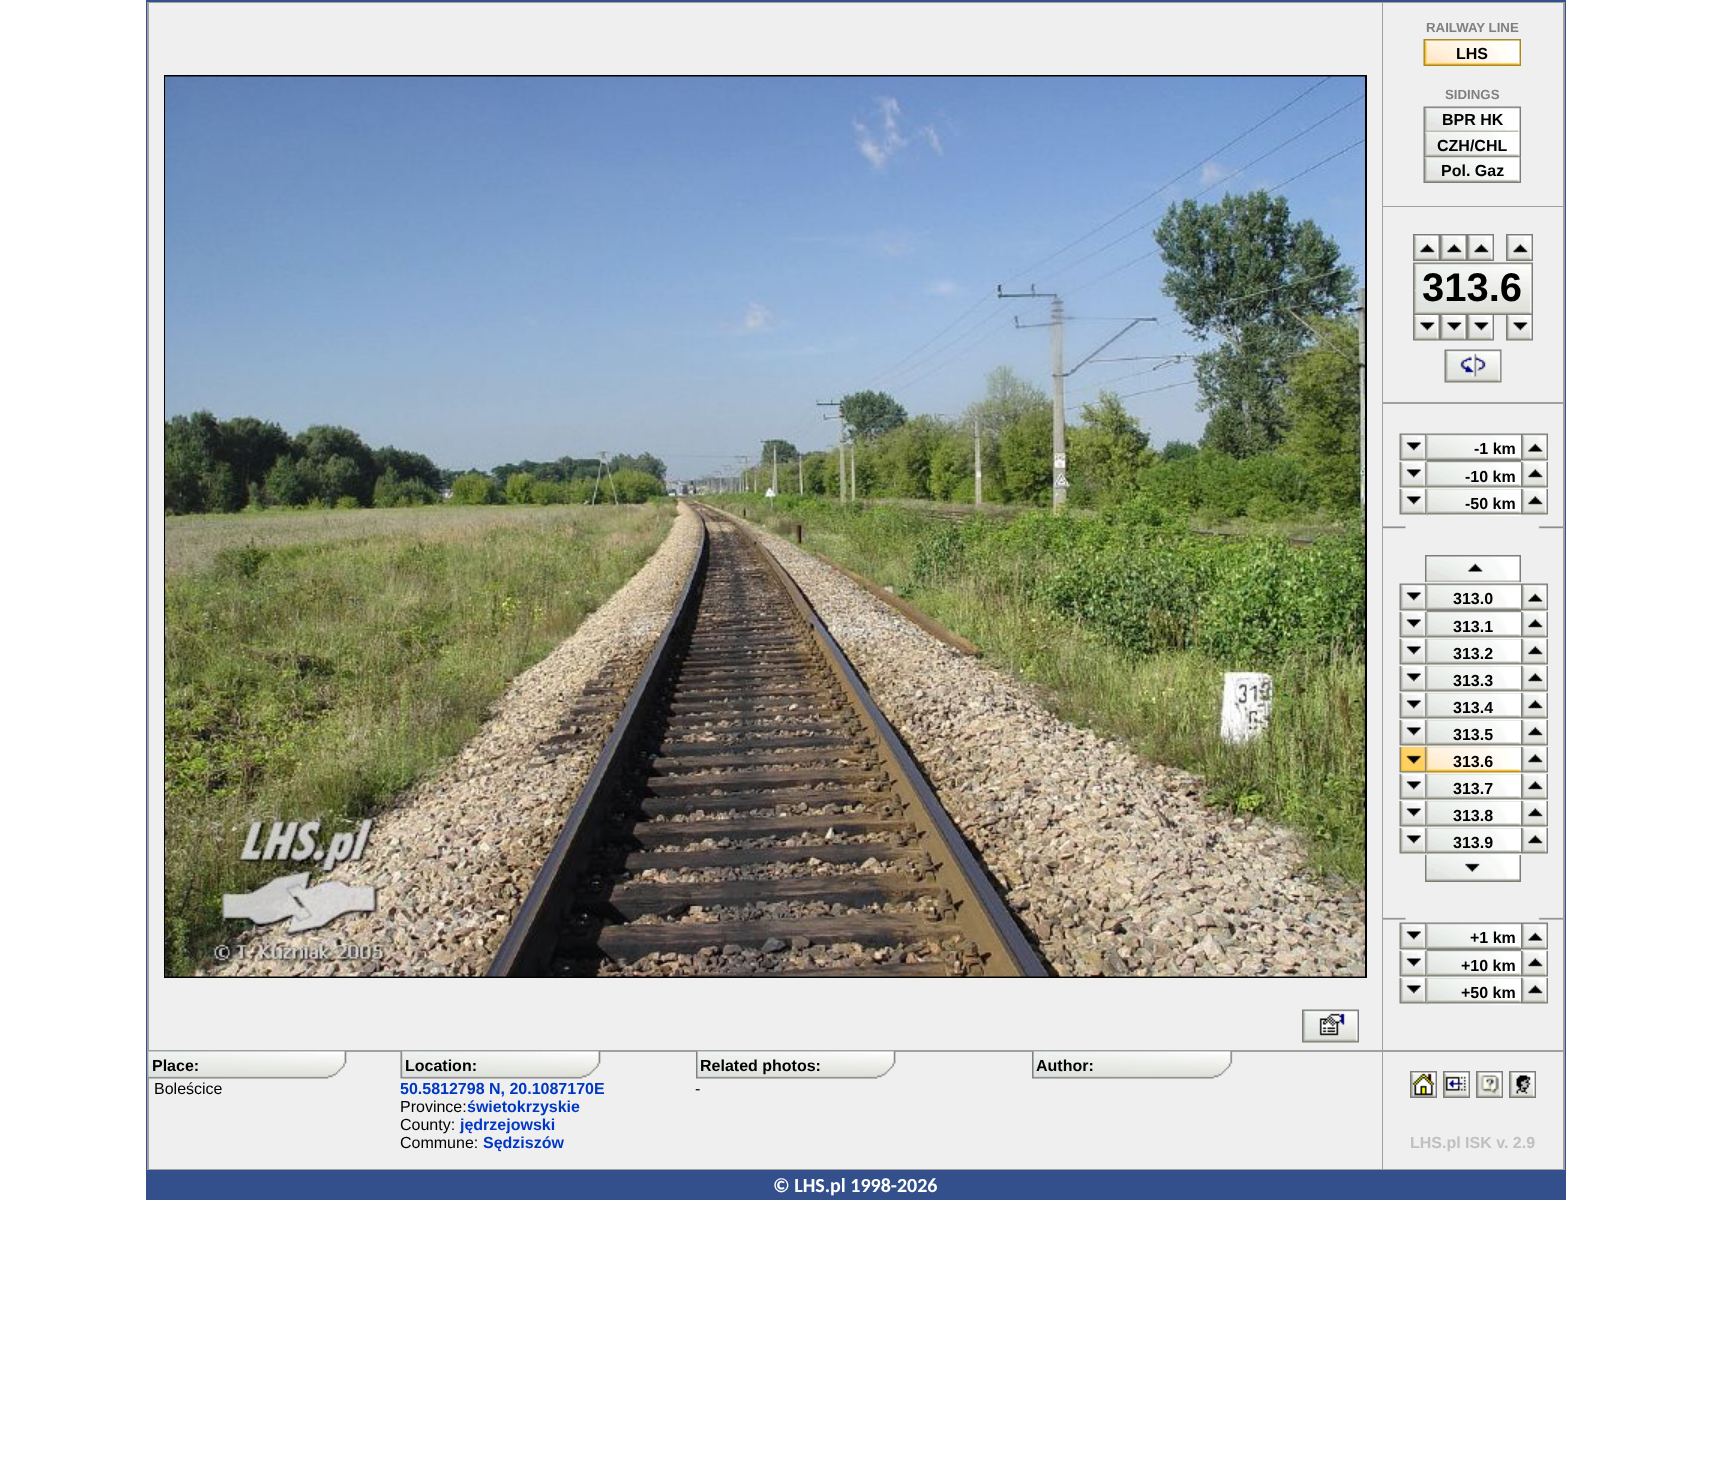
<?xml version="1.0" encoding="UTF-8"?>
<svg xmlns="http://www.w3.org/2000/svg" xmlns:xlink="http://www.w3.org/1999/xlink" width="1710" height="1460">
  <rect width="100%" height="100%" fill="#ffffff" />
  <rect x="146" width="1420" height="1200" fill="#34508c" />
  <rect x="147" y="2" width="1418" height="1168" fill="#a0a0a0" />
  <rect x="149" y="3" width="1233" height="1047" fill="#efefef" />
  <rect x="165" y="76" width="1201" height="901" fill="none" stroke="#000000" stroke-width="2" />
  <image x="165" y="76" width="1200" height="901" xlink:href="image1.png" />
  <rect x="1383" y="3" width="180" height="203" fill="#efefef" />
  <image x="1423" y="39" width="98" height="27" xlink:href="image2.png" />
  <image x="1423" y="106" width="98" height="26" xlink:href="image3.png" />
  <image x="1423" y="132" width="98" height="26" xlink:href="image4.png" />
  <image x="1423" y="157" width="98" height="26" xlink:href="image5.png" />
  <rect x="1383" y="207" width="180" height="195" fill="#efefef" />
  <image x="1413" y="234" width="27" height="27" xlink:href="image6.png" />
  <image x="1440" y="234" width="27" height="27" xlink:href="image6.png" />
  <image x="1467" y="234" width="27" height="27" xlink:href="image7.png" />
  <image x="1506" y="234" width="27" height="27" xlink:href="image7.png" />
  <image x="1413" y="262" width="120" height="53" xlink:href="image8.png" />
  <image x="1413" y="315" width="27" height="26" xlink:href="image9.png" />
  <image x="1440" y="315" width="27" height="26" xlink:href="image9.png" />
  <image x="1467" y="315" width="27" height="26" xlink:href="image10.png" />
  <image x="1506" y="315" width="27" height="26" xlink:href="image10.png" />
  <image x="1444" y="349" width="58" height="34" xlink:href="image11.png" />
  <rect x="1383" y="404" width="180" height="646" fill="#efefef" />
  <image x="1426" y="433" width="95" height="29" xlink:href="image13.png" />
  <image x="1399" y="433" width="28" height="28" xlink:href="image12.png" />
  <image x="1521" y="433" width="27" height="28" xlink:href="image14.png" />
  <image x="1426" y="462" width="95" height="27" xlink:href="image16.png" />
  <image x="1399" y="462" width="28" height="26" xlink:href="image15.png" />
  <image x="1521" y="462" width="27" height="26" xlink:href="image17.png" />
  <image x="1426" y="489" width="95" height="27" xlink:href="image16.png" />
  <image x="1399" y="489" width="28" height="26" xlink:href="image15.png" />
  <image x="1521" y="489" width="27" height="26" xlink:href="image17.png" />
  <image x="1383" y="526" width="180" height="3" xlink:href="image18.png" />
  <image x="1425" y="555" width="96" height="27" xlink:href="image19.png" />
  <image x="1426" y="583" width="95" height="29" xlink:href="image13.png" />
  <image x="1399" y="583" width="28" height="28" xlink:href="image12.png" />
  <image x="1521" y="583" width="27" height="28" xlink:href="image14.png" />
  <image x="1426" y="612" width="95" height="27" xlink:href="image16.png" />
  <image x="1399" y="612" width="28" height="26" xlink:href="image15.png" />
  <image x="1521" y="612" width="27" height="26" xlink:href="image17.png" />
  <image x="1426" y="639" width="95" height="27" xlink:href="image20.png" />
  <image x="1399" y="639" width="28" height="26" xlink:href="image15.png" />
  <image x="1521" y="639" width="27" height="26" xlink:href="image17.png" />
  <image x="1426" y="666" width="95" height="27" xlink:href="image21.png" />
  <image x="1399" y="666" width="28" height="26" xlink:href="image15.png" />
  <image x="1521" y="666" width="27" height="26" xlink:href="image17.png" />
  <image x="1426" y="693" width="95" height="27" xlink:href="image22.png" />
  <image x="1399" y="693" width="28" height="26" xlink:href="image15.png" />
  <image x="1521" y="693" width="27" height="26" xlink:href="image17.png" />
  <image x="1426" y="720" width="95" height="27" xlink:href="image23.png" />
  <image x="1399" y="720" width="28" height="26" xlink:href="image15.png" />
  <image x="1521" y="720" width="27" height="26" xlink:href="image17.png" />
  <image x="1426" y="747" width="95" height="27" xlink:href="image25.png" />
  <image x="1399" y="747" width="28" height="26" xlink:href="image24.png" />
  <image x="1521" y="747" width="27" height="26" xlink:href="image17.png" />
  <image x="1426" y="774" width="95" height="27" xlink:href="image20.png" />
  <image x="1399" y="774" width="28" height="26" xlink:href="image15.png" />
  <image x="1521" y="774" width="27" height="26" xlink:href="image17.png" />
  <image x="1426" y="801" width="95" height="27" xlink:href="image21.png" />
  <image x="1399" y="801" width="28" height="26" xlink:href="image15.png" />
  <image x="1521" y="801" width="27" height="26" xlink:href="image17.png" />
  <image x="1426" y="828" width="95" height="27" xlink:href="image22.png" />
  <image x="1399" y="828" width="28" height="26" xlink:href="image15.png" />
  <image x="1521" y="828" width="27" height="26" xlink:href="image17.png" />
  <image x="1425" y="855" width="96" height="27" xlink:href="image26.png" />
  <image x="1383" y="917" width="180" height="3" xlink:href="image27.png" />
  <image x="1426" y="922" width="95" height="29" xlink:href="image28.png" />
  <image x="1399" y="922" width="28" height="28" xlink:href="image12.png" />
  <image x="1521" y="922" width="27" height="28" xlink:href="image14.png" />
  <image x="1426" y="951" width="95" height="27" xlink:href="image29.png" />
  <image x="1399" y="951" width="28" height="26" xlink:href="image15.png" />
  <image x="1521" y="951" width="27" height="26" xlink:href="image17.png" />
  <image x="1426" y="978" width="95" height="27" xlink:href="image29.png" />
  <image x="1399" y="978" width="28" height="26" xlink:href="image15.png" />
  <image x="1521" y="978" width="27" height="26" xlink:href="image17.png" />
  <rect x="149" y="1052" width="1233" height="117" fill="#efefef" />
  <image x="148" y="1051" width="199" height="28" xlink:href="image30.png" />
  <image x="400" y="1051" width="201" height="28" xlink:href="image31.png" />
  <image x="696" y="1051" width="200" height="28" xlink:href="image32.png" />
  <image x="1032" y="1051" width="201" height="28" xlink:href="image33.png" />
  <image x="1302" y="1009" width="57" height="34" xlink:href="image34.png" />
  <rect x="1383" y="1052" width="180" height="117" fill="#efefef" />
  <image x="1410" y="1071" width="27" height="27" xlink:href="image35.png" />
  <image x="1443" y="1071" width="27" height="27" xlink:href="image36.png" />
  <image x="1476" y="1071" width="27" height="27" xlink:href="image37.png" />
  <image x="1509" y="1071" width="27" height="27" xlink:href="image38.png" />
  <text x="1426" y="32" style="font-family: Liberation Sans; font-size: 13.25px; font-weight: bold; fill: #808080">RAILWAY LINE</text>
  <text x="1456" y="59" style="font-family: Liberation Sans; font-size: 16px; font-weight: bold; fill: #000000">LHS</text>
  <text x="1445" y="99" style="font-family: Liberation Sans; font-size: 13.25px; font-weight: bold; fill: #808080">SIDINGS</text>
  <text x="1442" y="125" style="font-family: Liberation Sans; font-size: 16px; font-weight: bold; fill: #000000">BPR HK</text>
  <text x="1437" y="151" style="font-family: Liberation Sans; font-size: 16px; font-weight: bold; fill: #000000">CZH/CHL</text>
  <text x="1441" y="176" style="font-family: Liberation Sans; font-size: 16px; font-weight: bold; fill: #000000">Pol. Gaz</text>
  <text x="1422" y="301" style="font-family: Liberation Sans; font-size: 40px; font-weight: bold; fill: #000000">313.6</text>
  <text x="1474" y="454" style="font-family: Liberation Sans; font-size: 16px; font-weight: bold; fill: #000000">-1 km</text>
  <text x="1465" y="482" style="font-family: Liberation Sans; font-size: 16px; font-weight: bold; fill: #000000">-10 km</text>
  <text x="1465" y="509" style="font-family: Liberation Sans; font-size: 16px; font-weight: bold; fill: #000000">-50 km</text>
  <text x="1453" y="604" style="font-family: Liberation Sans; font-size: 16px; font-weight: bold; fill: #000000">313.0</text>
  <text x="1453" y="632" style="font-family: Liberation Sans; font-size: 16px; font-weight: bold; fill: #000000">313.1</text>
  <text x="1453" y="659" style="font-family: Liberation Sans; font-size: 16px; font-weight: bold; fill: #000000">313.2</text>
  <text x="1453" y="686" style="font-family: Liberation Sans; font-size: 16px; font-weight: bold; fill: #000000">313.3</text>
  <text x="1453" y="713" style="font-family: Liberation Sans; font-size: 16px; font-weight: bold; fill: #000000">313.4</text>
  <text x="1453" y="740" style="font-family: Liberation Sans; font-size: 16px; font-weight: bold; fill: #000000">313.5</text>
  <text x="1453" y="767" style="font-family: Liberation Sans; font-size: 16px; font-weight: bold; fill: #000000">313.6</text>
  <text x="1453" y="794" style="font-family: Liberation Sans; font-size: 16px; font-weight: bold; fill: #000000">313.7</text>
  <text x="1453" y="821" style="font-family: Liberation Sans; font-size: 16px; font-weight: bold; fill: #000000">313.8</text>
  <text x="1453" y="848" style="font-family: Liberation Sans; font-size: 16px; font-weight: bold; fill: #000000">313.9</text>
  <text x="1470" y="943" style="font-family: Liberation Sans; font-size: 16px; font-weight: bold; fill: #000000">+1 km</text>
  <text x="1461" y="971" style="font-family: Liberation Sans; font-size: 16px; font-weight: bold; fill: #000000">+10 km</text>
  <text x="1461" y="998" style="font-family: Liberation Sans; font-size: 16px; font-weight: bold; fill: #000000">+50 km</text>
  <text x="152" y="1071" style="font-family: Liberation Sans; font-size: 16px; font-weight: bold; fill: #000000">Place:</text>
  <text x="405" y="1071" style="font-family: Liberation Sans; font-size: 16px; font-weight: bold; fill: #000000">Location:</text>
  <text x="700" y="1071" style="font-family: Liberation Sans; font-size: 16px; font-weight: bold; fill: #000000">Related photos:</text>
  <text x="1036" y="1071" style="font-family: Liberation Sans; font-size: 16px; font-weight: bold; fill: #000000">Author:</text>
  <text x="154" y="1094" style="font-family: Liberation Sans; font-size: 16px; fill: #000000">Boleścice</text>
  <text x="400" y="1094" style="font-family: Liberation Sans; font-size: 16px; font-weight: bold; fill: #0038c3">50.5812798 N, 20.1087170E</text>
  <text x="400" y="1112" style="font-family: Liberation Sans; font-size: 16px; fill: #000000">Province:</text>
  <text x="467" y="1112" style="font-family: Liberation Sans; font-size: 16px; font-weight: bold; fill: #0038c3">świetokrzyskie</text>
  <text x="400" y="1130" style="font-family: Liberation Sans; font-size: 16px; fill: #000000">County:</text>
  <text x="460" y="1130" style="font-family: Liberation Sans; font-size: 16px; font-weight: bold; fill: #0038c3">jędrzejowski</text>
  <text x="400" y="1148" style="font-family: Liberation Sans; font-size: 16px; fill: #000000">Commune:</text>
  <text x="483" y="1148" style="font-family: Liberation Sans; font-size: 16px; font-weight: bold; fill: #0038c3">Sędziszów</text>
  <text x="695" y="1094" style="font-family: Liberation Sans; font-size: 16px; fill: #000000">-</text>
  <text x="1410" y="1148" style="font-family: Liberation Sans; font-size: 16px; font-weight: bold; fill: #c0c0c0">LHS.pl ISK v. 2.9</text>
  <text x="773" y="1192" style="font-family: Carlito; font-size: 20px; font-weight: bold; fill: #ffffff">© LHS.pl 1998-2026</text>
</svg>
